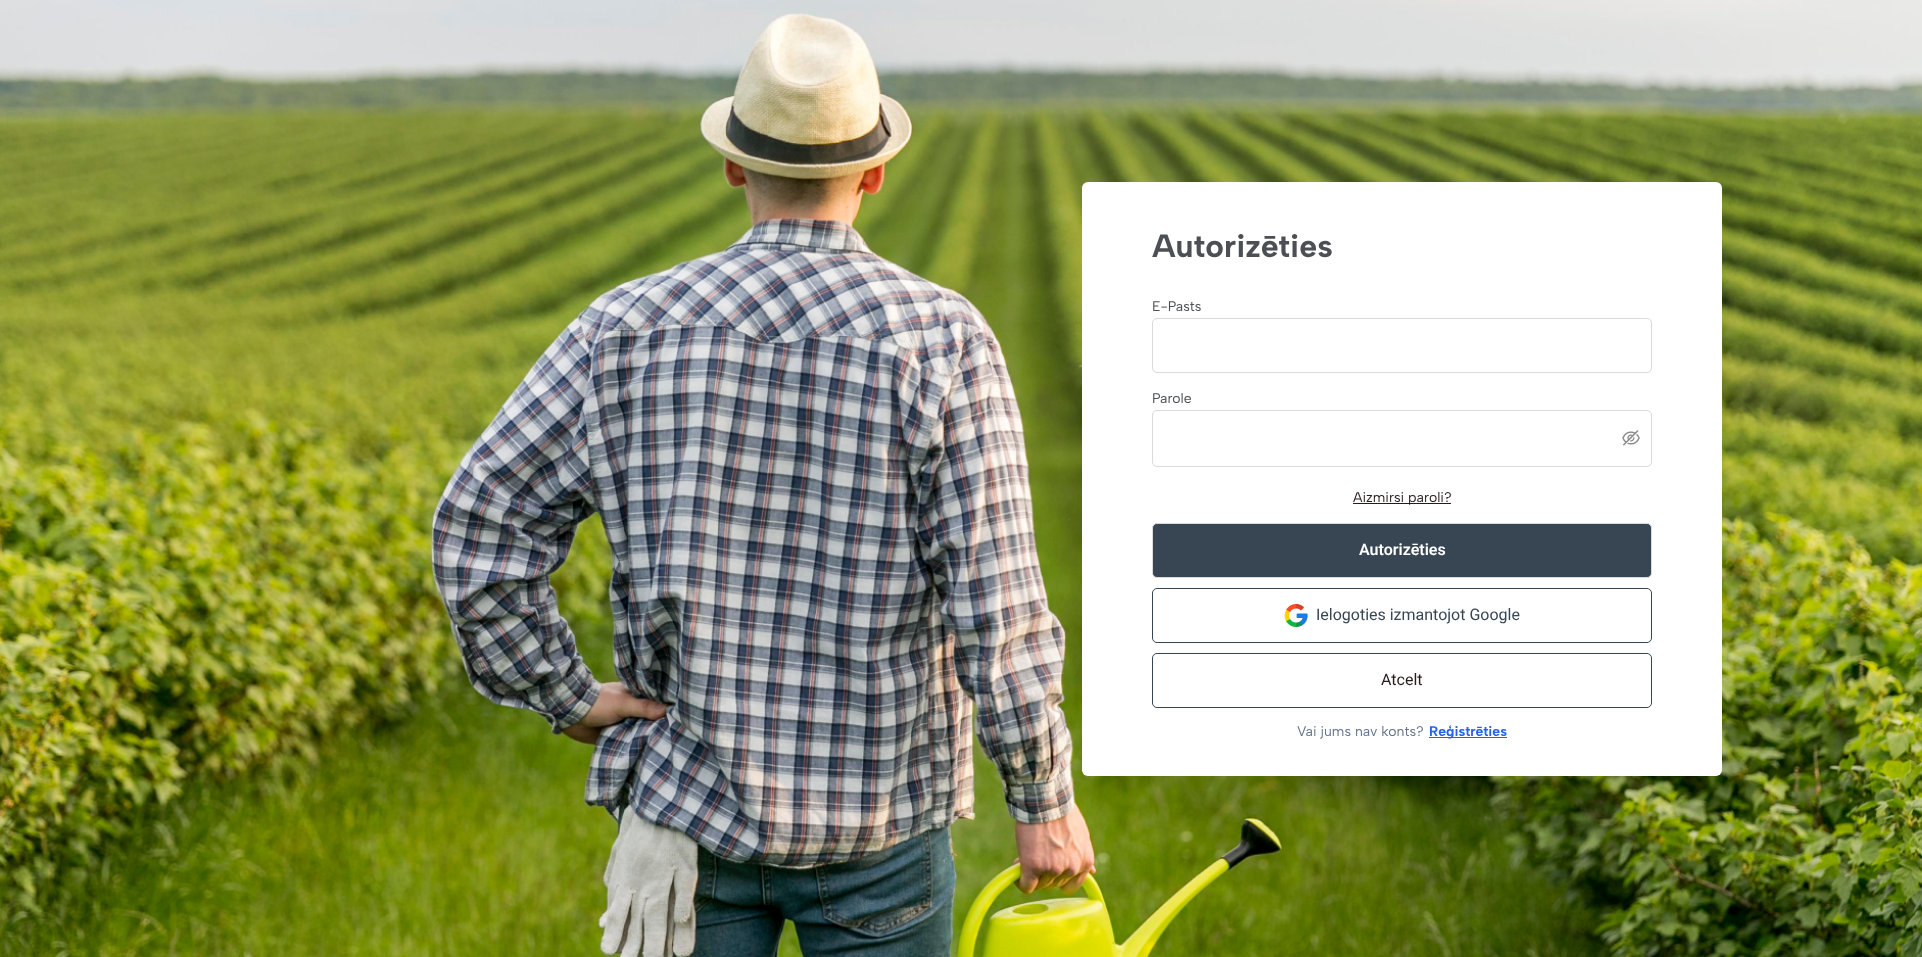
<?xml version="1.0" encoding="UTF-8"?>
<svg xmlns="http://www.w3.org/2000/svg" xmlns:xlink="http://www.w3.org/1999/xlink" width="1922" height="957">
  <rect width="100%" height="100%" fill="#ffffff" />
  <image x="0" y="0" width="1922" height="957" xlink:href="image1.png" />
  <rect x="1082" y="182" width="640" height="594" rx="6" fill="#ffffff" />
  <rect x="1152.5" y="318.5" width="499" height="54" rx="4.5" fill="none" stroke="#dadada" />
  <rect x="1152.5" y="410.5" width="499" height="56" rx="4.5" fill="none" stroke="#dadada" />
  <image x="1622" y="430" width="18" height="16" xlink:href="image2.png" />
  <rect x="1353" y="503" width="98" height="1" fill="#2a1a1a" />
  <rect x="1152.5" y="523.5" width="499" height="54" rx="4.5" fill="#384654" stroke="#dadada" />
  <rect x="1152.5" y="588.5" width="499" height="54" rx="4.5" fill="none" stroke="#384654" />
  <image x="1284" y="604" width="24" height="23" xlink:href="image3.png" />
  <rect x="1152.5" y="653.5" width="499" height="54" rx="4.5" fill="none" stroke="#384654" />
  <rect x="1429" y="737" width="78" height="1" fill="#2563eb" />
  <text x="1152" y="257" style="font-family: Albert Sans; font-size: 32px; font-weight: bold; fill: #4c4f54">Autorizēties</text>
  <text x="1152" y="311" style="font-family: Albert Sans; font-size: 14px; fill: #4c4f54">E-Pasts</text>
  <text x="1152" y="403" style="font-family: Albert Sans; font-size: 14px; fill: #4c4f54">Parole</text>
  <text x="1353" y="502" style="font-family: Albert Sans; font-size: 14px; fill: #2a1a1a">Aizmirsi paroli?</text>
  <text x="1359" y="555" style="font-family: Roboto; font-size: 16px; font-weight: 600; fill: #ffffff">Autorizēties</text>
  <text x="1316" y="620" style="font-family: Roboto; font-size: 16px; fill: #384654">Ielogoties izmantojot Google</text>
  <text x="1381" y="685" style="font-family: Roboto; font-size: 16px; fill: #2a1a1a">Atcelt</text>
  <text x="1297" y="736" style="font-family: Albert Sans; font-size: 14px; fill: #64748b">Vai jums nav konts?</text>
  <text x="1429" y="736" style="font-family: Albert Sans; font-size: 14px; font-weight: bold; fill: #2563eb">Reģistrēties</text>
</svg>
